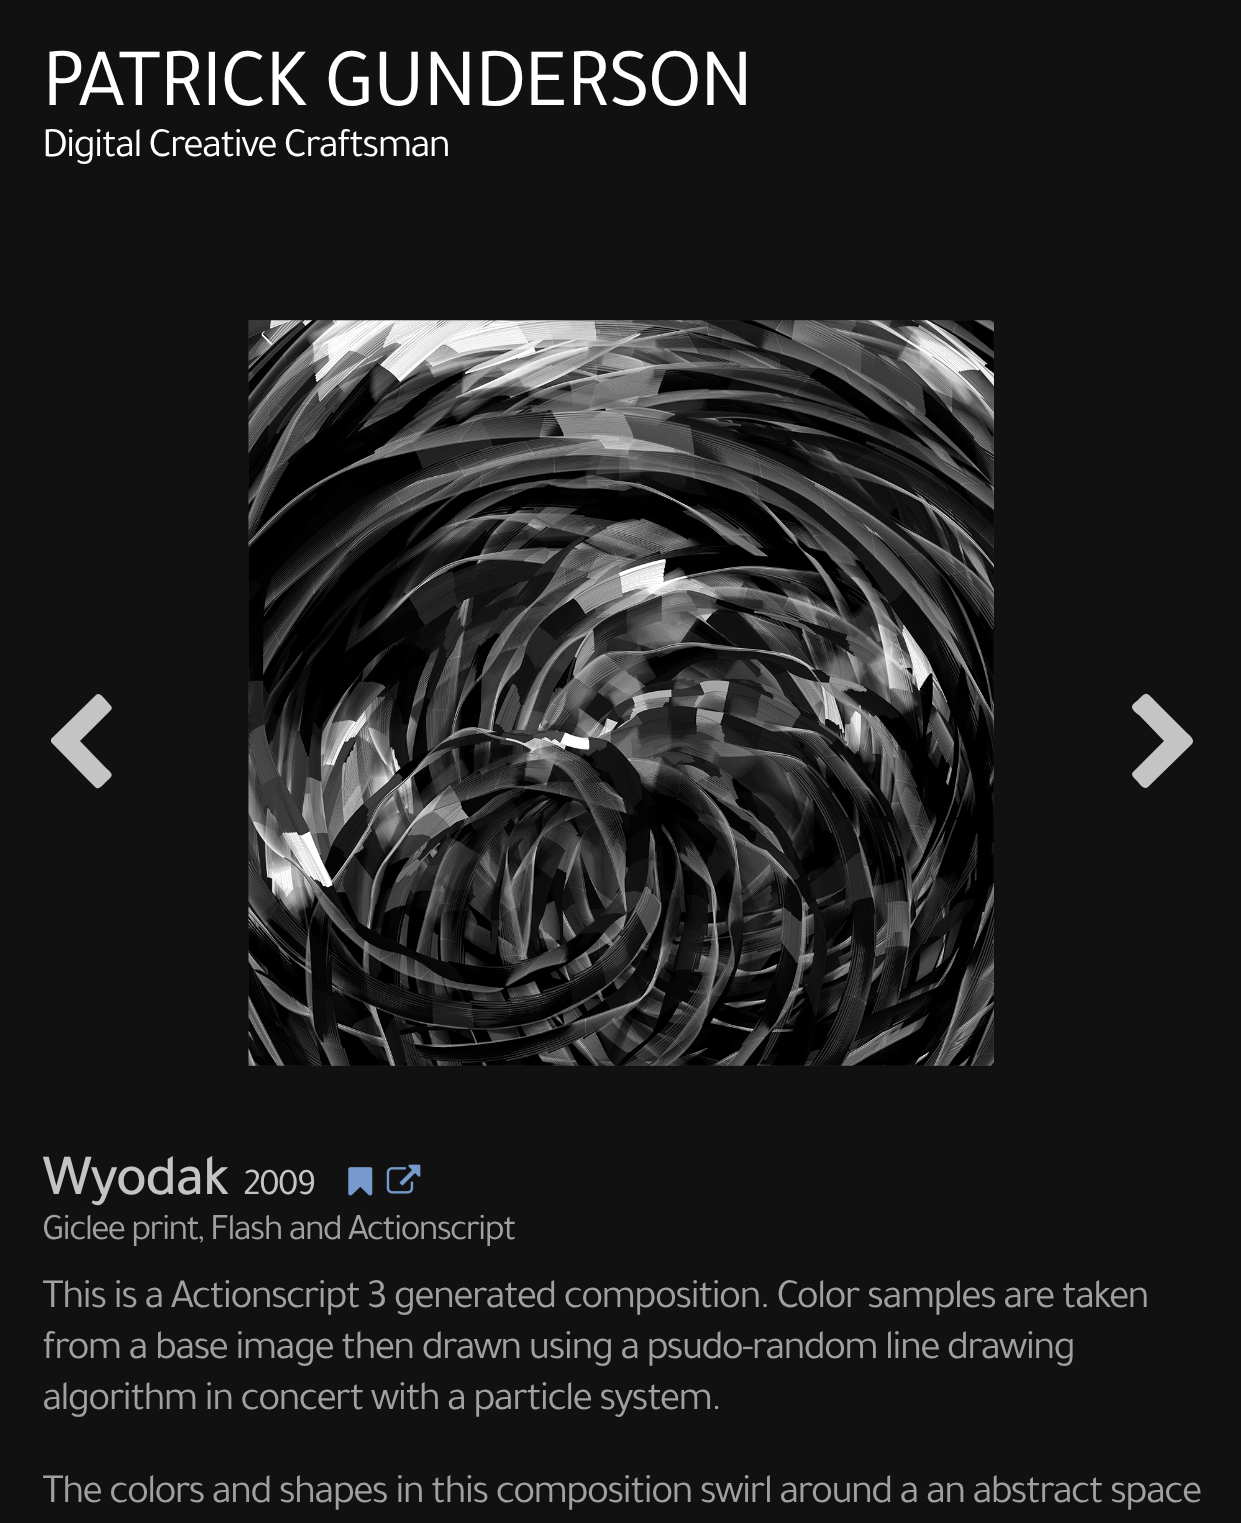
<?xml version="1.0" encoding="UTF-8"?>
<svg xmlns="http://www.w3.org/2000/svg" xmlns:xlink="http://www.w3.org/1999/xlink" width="1241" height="1523">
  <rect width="100%" height="100%" fill="#111111" />
  <path d="M 111 710 l -31 31 l 25 26 c 10 9 8 8 -1 17 c -8 8 -7 4 -16 -4 l -37 -38 v -3 l 45 -44 c 3 -3 6 1 8 3 l 7 8 c 1 1 1 3 0 4 z" fill="#c4c4c4" />
  <image x="248" y="320" width="746" height="746" xlink:href="image1.png" />
  <path d="M 1192 744 l -44 43 c -4 4 -9 -4 -11 -6 c -2 -2 -7 -6 -4 -9 l 31 -31 l -25 -26 c -2 -1 -7 -5 -7 -8 c 0 -3 4 -5 6 -7 c 9 -9 8 -8 18 2 l 29 29 c 0 1 9 6 8 11 z" fill="#c4c4c4" />
  <image x="348" y="1167" width="25" height="29" xlink:href="image2.png" />
  <image x="386" y="1164" width="35" height="30" xlink:href="image3.png" />
  <text x="42" y="105" style="font-family: Tajawal; font-size: 84px; letter-spacing: -2.1px; fill: #ffffff">PATRICK GUNDERSON</text>
  <text x="42" y="156" style="font-family: Tajawal; font-size: 42px; letter-spacing: -2.1px; fill: #ffffff">Digital Creative Craftsman</text>
  <text x="42" y="1194" style="font-family: Tajawal; font-size: 59px; font-weight: 500; letter-spacing: -2.1px; fill: #c4c4c4">Wyodak</text>
  <text x="243" y="1194" style="font-family: Tajawal; font-size: 37.75px; letter-spacing: -2.1px; fill: #c4c4c4">2009</text>
  <text x="42" y="1239" style="font-family: Tajawal; font-size: 37.75px; letter-spacing: -2.1px; fill: #a0a0a0">Giclee print, Flash and Actionscript</text>
  <text x="42" y="1307" style="font-family: Tajawal; font-size: 42px; letter-spacing: -2.1px; fill: #a0a0a0">This is a Actionscript 3 generated composition. Color samples are taken</text>
  <text x="42" y="1358" style="font-family: Tajawal; font-size: 42px; letter-spacing: -2.1px; fill: #a0a0a0">from a base image then drawn using a psudo-random line drawing</text>
  <text x="42" y="1409" style="font-family: Tajawal; font-size: 42px; letter-spacing: -2.1px; fill: #a0a0a0">algorithm in concert with a particle system.</text>
  <text x="42" y="1502" style="font-family: Tajawal; font-size: 42px; letter-spacing: -2.1px; fill: #a0a0a0">The colors and shapes in this composition swirl around a an abstract space</text>
</svg>
